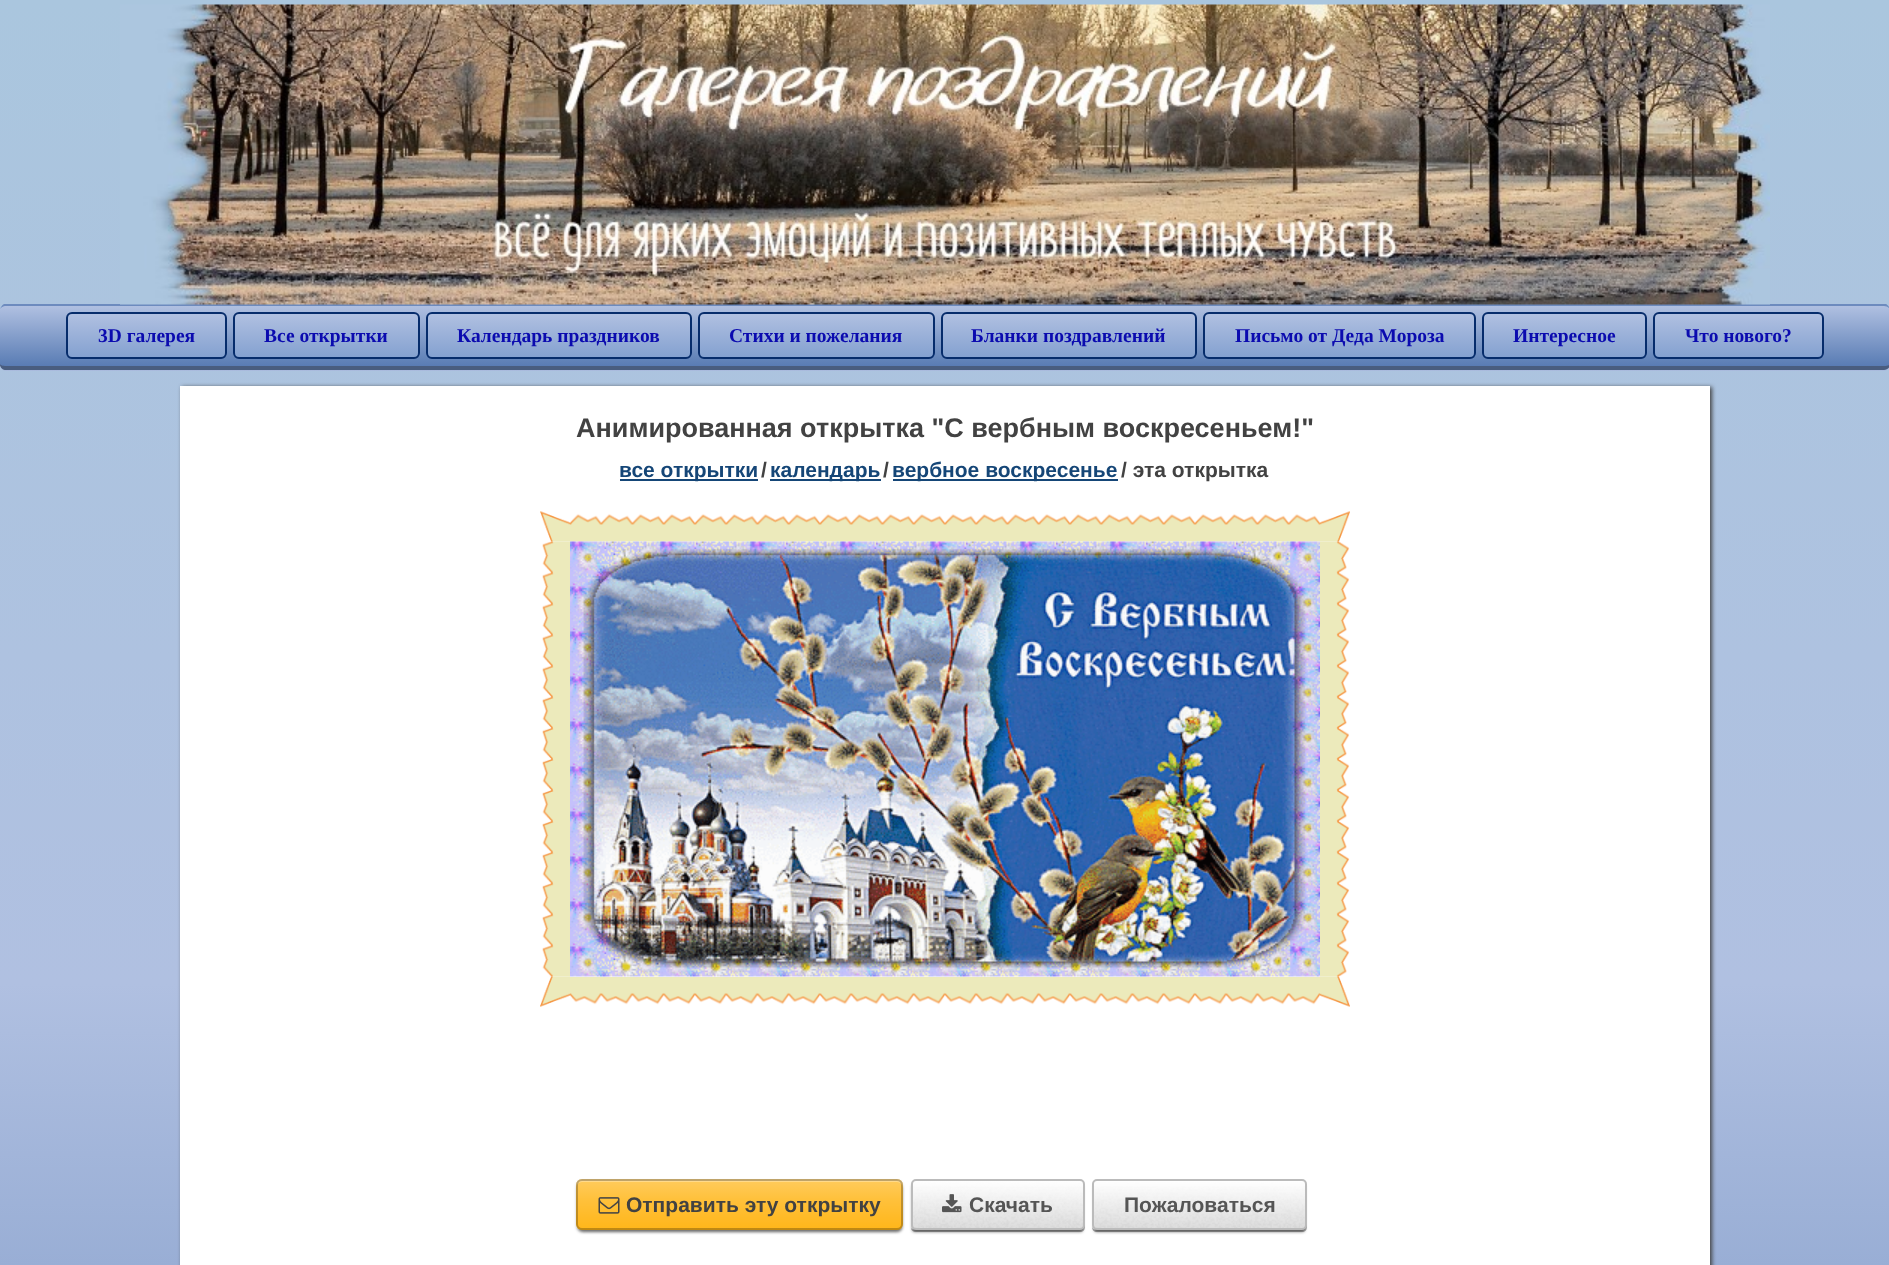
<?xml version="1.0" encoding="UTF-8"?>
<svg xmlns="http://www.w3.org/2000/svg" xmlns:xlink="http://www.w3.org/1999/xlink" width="1889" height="1265">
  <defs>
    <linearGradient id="g1" gradientUnits="userSpaceOnUse" x1="945" y1="0" x2="945" y2="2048"><stop offset="0" stop-color="#aac6de" /><stop offset="0.48" stop-color="#b0c0e1" /><stop offset="1" stop-color="#597cb4" /></linearGradient>
    <clipPath id="clip1"><rect y="305" width="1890" height="66" rx="6" /></clipPath>
    <linearGradient id="g2" gradientUnits="userSpaceOnUse" x1="945" y1="306" x2="945" y2="366"><stop offset="0" stop-color="#b0c0e1" /><stop offset="1" stop-color="#597cb4" /></linearGradient>
    <linearGradient id="g3" gradientUnits="userSpaceOnUse" x1="945" y1="366" x2="945" y2="426"><stop offset="0" stop-color="#b0c0e1" /><stop offset="1" stop-color="#597cb4" /></linearGradient>
    <clipPath id="clip2"><rect x="66" y="312" width="161" height="47" rx="6" /></clipPath>
    <linearGradient id="g4" gradientUnits="userSpaceOnUse" x1="146" y1="314" x2="146" y2="357"><stop offset="0" stop-color="#b0c0e1" /><stop offset="1" stop-color="#84a1d0" /><stop offset="1" stop-color="#b0c0e1" /></linearGradient>
    <clipPath id="clip3"><rect x="233" y="312" width="187" height="47" rx="6" /></clipPath>
    <linearGradient id="g5" gradientUnits="userSpaceOnUse" x1="326" y1="314" x2="326" y2="357"><stop offset="0" stop-color="#b0c0e1" /><stop offset="1" stop-color="#84a1d0" /><stop offset="1" stop-color="#b0c0e1" /></linearGradient>
    <clipPath id="clip4"><rect x="426" y="312" width="266" height="47" rx="6" /></clipPath>
    <linearGradient id="g6" gradientUnits="userSpaceOnUse" x1="559" y1="314" x2="559" y2="357"><stop offset="0" stop-color="#b0c0e1" /><stop offset="1" stop-color="#84a1d0" /><stop offset="1" stop-color="#b0c0e1" /></linearGradient>
    <clipPath id="clip5"><rect x="698" y="312" width="237" height="47" rx="6" /></clipPath>
    <linearGradient id="g7" gradientUnits="userSpaceOnUse" x1="816" y1="314" x2="816" y2="357"><stop offset="0" stop-color="#b0c0e1" /><stop offset="1" stop-color="#84a1d0" /><stop offset="1" stop-color="#b0c0e1" /></linearGradient>
    <clipPath id="clip6"><rect x="941" y="312" width="256" height="47" rx="6" /></clipPath>
    <linearGradient id="g8" gradientUnits="userSpaceOnUse" x1="1069" y1="314" x2="1069" y2="357"><stop offset="0" stop-color="#b0c0e1" /><stop offset="1" stop-color="#84a1d0" /><stop offset="1" stop-color="#b0c0e1" /></linearGradient>
    <clipPath id="clip7"><rect x="1203" y="312" width="273" height="47" rx="6" /></clipPath>
    <linearGradient id="g9" gradientUnits="userSpaceOnUse" x1="1340" y1="314" x2="1340" y2="357"><stop offset="0" stop-color="#b0c0e1" /><stop offset="1" stop-color="#84a1d0" /><stop offset="1" stop-color="#b0c0e1" /></linearGradient>
    <clipPath id="clip8"><rect x="1482" y="312" width="165" height="47" rx="6" /></clipPath>
    <linearGradient id="g10" gradientUnits="userSpaceOnUse" x1="1565" y1="314" x2="1565" y2="357"><stop offset="0" stop-color="#b0c0e1" /><stop offset="1" stop-color="#84a1d0" /><stop offset="1" stop-color="#b0c0e1" /></linearGradient>
    <clipPath id="clip9"><rect x="1653" y="312" width="171" height="47" rx="6" /></clipPath>
    <linearGradient id="g11" gradientUnits="userSpaceOnUse" x1="1739" y1="314" x2="1739" y2="357"><stop offset="0" stop-color="#b0c0e1" /><stop offset="1" stop-color="#84a1d0" /><stop offset="1" stop-color="#b0c0e1" /></linearGradient>
    <linearGradient id="g12" gradientUnits="userSpaceOnUse" x1="740" y1="1179" x2="740" y2="1230"><stop offset="0" stop-color="#ffffff" stop-opacity="0.3" /><stop offset="0.4" stop-color="#ffffff" stop-opacity="0.15" /><stop offset="1" stop-color="#ffffff" stop-opacity="0" /></linearGradient>
  </defs>
  <rect width="100%" height="100%" fill="#ffffff" />
  <rect width="1889" height="1265" fill="url(#g1)" />
  <g clip-path="url(#clip1)">
    <rect y="306" width="1889" height="60" fill="url(#g2)" />
  </g>
  <path d="M 6 306 c -3 0 -6 2 -6 4 c 0 -2 2 -5 4 -6 h 1882 c 2 1 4 4 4 6 c 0 -2 -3 -4 -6 -4 z" fill="#6d8bbe" />
  <image x="120" y="4" width="1650" height="301" xlink:href="image1.png" />
  <g clip-path="url(#clip1)">
    <rect y="366" width="1889" height="5" fill="url(#g3)" />
  </g>
  <path d="M 1884 370 c 3 0 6 -2 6 -6 c 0 1 -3 2 -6 2 h -1878 c -3 0 -6 -1 -6 -2 c 0 4 3 6 6 6 z" fill="#495d7f" />
  <g clip-path="url(#clip2)">
    <rect x="66" y="314" width="161" height="43" fill="url(#g4)" />
  </g>
  <rect x="67" y="313" width="159" height="45" rx="5" fill="none" stroke="#062c6b" stroke-width="2" />
  <g clip-path="url(#clip3)">
    <rect x="233" y="314" width="187" height="43" fill="url(#g5)" />
  </g>
  <rect x="234" y="313" width="185" height="45" rx="5" fill="none" stroke="#062c6b" stroke-width="2" />
  <g clip-path="url(#clip4)">
    <rect x="426" y="314" width="266" height="43" fill="url(#g6)" />
  </g>
  <rect x="427" y="313" width="264" height="45" rx="5" fill="none" stroke="#062c6b" stroke-width="2" />
  <g clip-path="url(#clip5)">
    <rect x="698" y="314" width="237" height="43" fill="url(#g7)" />
  </g>
  <rect x="699" y="313" width="235" height="45" rx="5" fill="none" stroke="#062c6b" stroke-width="2" />
  <g clip-path="url(#clip6)">
    <rect x="941" y="314" width="256" height="43" fill="url(#g8)" />
  </g>
  <rect x="942" y="313" width="254" height="45" rx="5" fill="none" stroke="#062c6b" stroke-width="2" />
  <g clip-path="url(#clip7)">
    <rect x="1203" y="314" width="273" height="43" fill="url(#g9)" />
  </g>
  <rect x="1204" y="313" width="271" height="45" rx="5" fill="none" stroke="#062c6b" stroke-width="2" />
  <g clip-path="url(#clip8)">
    <rect x="1482" y="314" width="165" height="43" fill="url(#g10)" />
  </g>
  <rect x="1483" y="313" width="163" height="45" rx="5" fill="none" stroke="#062c6b" stroke-width="2" />
  <g clip-path="url(#clip9)">
    <rect x="1653" y="314" width="171" height="43" fill="url(#g11)" />
  </g>
  <rect x="1654" y="313" width="169" height="45" rx="5" fill="none" stroke="#062c6b" stroke-width="2" />
  <rect x="182" y="387" width="1530" height="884" fill="#424242" filter="blur(2px)" />
  <rect x="180" y="386" width="1530" height="879" fill="#ffffff" />
  <rect x="620" y="479" width="138" height="2" fill="#154677" />
  <rect x="770" y="479" width="111" height="2" fill="#154677" />
  <rect x="893" y="479" width="225" height="2" fill="#154677" />
  <image x="540" y="511" width="810" height="496" xlink:href="image2.png" />
  <rect x="570" y="976" width="750" height="1" fill="#ffffff" />
  <image x="570" y="541" width="750" height="436" xlink:href="image3.png" />
  <rect x="578" y="1184" width="324" height="48" rx="5" fill="#000000" fill-opacity="0.5" filter="blur(1.5px)" />
  <rect x="576" y="1181" width="327" height="51" rx="6" fill="#000000" fill-opacity="0.15" filter="blur(1.5px)" />
  <rect x="576" y="1179" width="327" height="51" rx="6" fill="#ffb619" />
  <rect x="576" y="1179" width="327" height="51" rx="6" fill="url(#g12)" />
  <path d="M 582 1182 h 315 c 3 0 6 3 6 6 c 0 -4 0 -8 -5 -9 h -317 c -5 1 -5 5 -5 9 c 0 -3 3 -6 6 -6 z" fill="#ffffff" fill-opacity="0.3" />
  <rect x="577" y="1180" width="325" height="49" rx="5" fill="none" stroke="#000000" stroke-opacity="0.25" stroke-width="2" />
  <image x="598" y="1197" width="22" height="17" xlink:href="image4.png" />
  <rect x="912" y="1184" width="171" height="48" rx="3" fill="#000000" fill-opacity="0.5" filter="blur(1.5px)" />
  <path d="M 911 1228 c 0 2 2 4 5 4 h 164 c 3 0 5 -2 5 -5 v -41 l -1 -2 v 42 c 0 2 -2 4 -4 4 h -165 c -2 0 -3 -1 -4 -2 z" fill="#000000" fill-opacity="0.3" />
  <rect x="912" y="1181" width="171" height="48" rx="3" fill="#dddddd" />
  <image x="913" y="1181" width="170" height="47" xlink:href="image5.png" />
  <rect x="912" y="1180" width="172" height="49" rx="4" fill="none" stroke="#bbbbbb" stroke-width="2" />
  <image x="942" y="1194" width="20" height="19" xlink:href="image6.png" />
  <rect x="1094" y="1184" width="211" height="48" rx="3" fill="#000000" fill-opacity="0.5" filter="blur(1.5px)" />
  <path d="M 1092 1226 v 1 c 0 3 2 5 5 5 h 205 c 3 0 5 -2 5 -5 v -41 l -1 -2 v 42 c 0 2 -2 4 -4 4 h -206 c -2 0 -4 -2 -4 -4 z" fill="#000000" fill-opacity="0.3" />
  <rect x="1094" y="1181" width="211" height="48" rx="3" fill="#dddddd" />
  <image x="1094" y="1181" width="211" height="47" xlink:href="image7.png" />
  <rect x="1093" y="1180" width="213" height="49" rx="4" fill="none" stroke="#bbbbbb" stroke-width="2" />
  <text x="98" y="342" style="font-family: Liberation Serif; font-size: 19.5px; font-weight: bold; fill: #0b0baf">3D галерея</text>
  <text x="264" y="342" style="font-family: Liberation Serif; font-size: 19.5px; font-weight: bold; fill: #0b0baf">Все открытки</text>
  <text x="457" y="342" style="font-family: Liberation Serif; font-size: 19.5px; font-weight: bold; fill: #0b0baf">Календарь праздников</text>
  <text x="729" y="342" style="font-family: Liberation Serif; font-size: 19.5px; font-weight: bold; fill: #0b0baf">Стихи и пожелания</text>
  <text x="971" y="342" style="font-family: Liberation Serif; font-size: 19.5px; font-weight: bold; fill: #0b0baf">Бланки поздравлений</text>
  <text x="1235" y="342" style="font-family: Liberation Serif; font-size: 19.5px; font-weight: bold; fill: #0b0baf">Письмо от Деда Мороза</text>
  <text x="1513" y="342" style="font-family: Liberation Serif; font-size: 19.5px; font-weight: bold; fill: #0b0baf">Интересное</text>
  <text x="1685" y="342" style="font-family: Liberation Serif; font-size: 19.5px; font-weight: bold; fill: #0b0baf">Что нового?</text>
  <text x="576" y="437" style="font-family: Liberation Sans; font-size: 27px; font-weight: bold; fill: #424242">Анимированная открытка "С вербным воскресеньем!"</text>
  <text x="619" y="477" style="font-family: Liberation Sans; font-size: 21px; font-weight: bold; fill: #154677">все открытки</text>
  <text x="761" y="477" style="font-family: Liberation Sans; font-size: 21px; font-weight: bold; fill: #424242">/</text>
  <text x="770" y="477" style="font-family: Liberation Sans; font-size: 21px; font-weight: bold; fill: #154677">календарь</text>
  <text x="883" y="477" style="font-family: Liberation Sans; font-size: 21px; font-weight: bold; fill: #424242">/</text>
  <text x="892" y="477" style="font-family: Liberation Sans; font-size: 21px; font-weight: bold; fill: #154677">вербное воскресенье</text>
  <text x="1121" y="477" style="font-family: Liberation Sans; font-size: 21px; font-weight: bold; fill: #424242">/ эта открытка</text>
  <text x="626" y="1212" style="font-family: Liberation Sans; font-size: 21px; font-weight: bold; fill: #424242">Отправить эту открытку</text>
  <text x="969" y="1212" style="font-family: Liberation Sans; font-size: 21px; font-weight: bold; fill: #555555">Скачать</text>
  <text x="1124" y="1212" style="font-family: Liberation Sans; font-size: 21px; font-weight: bold; fill: #555555">Пожаловаться</text>
</svg>
